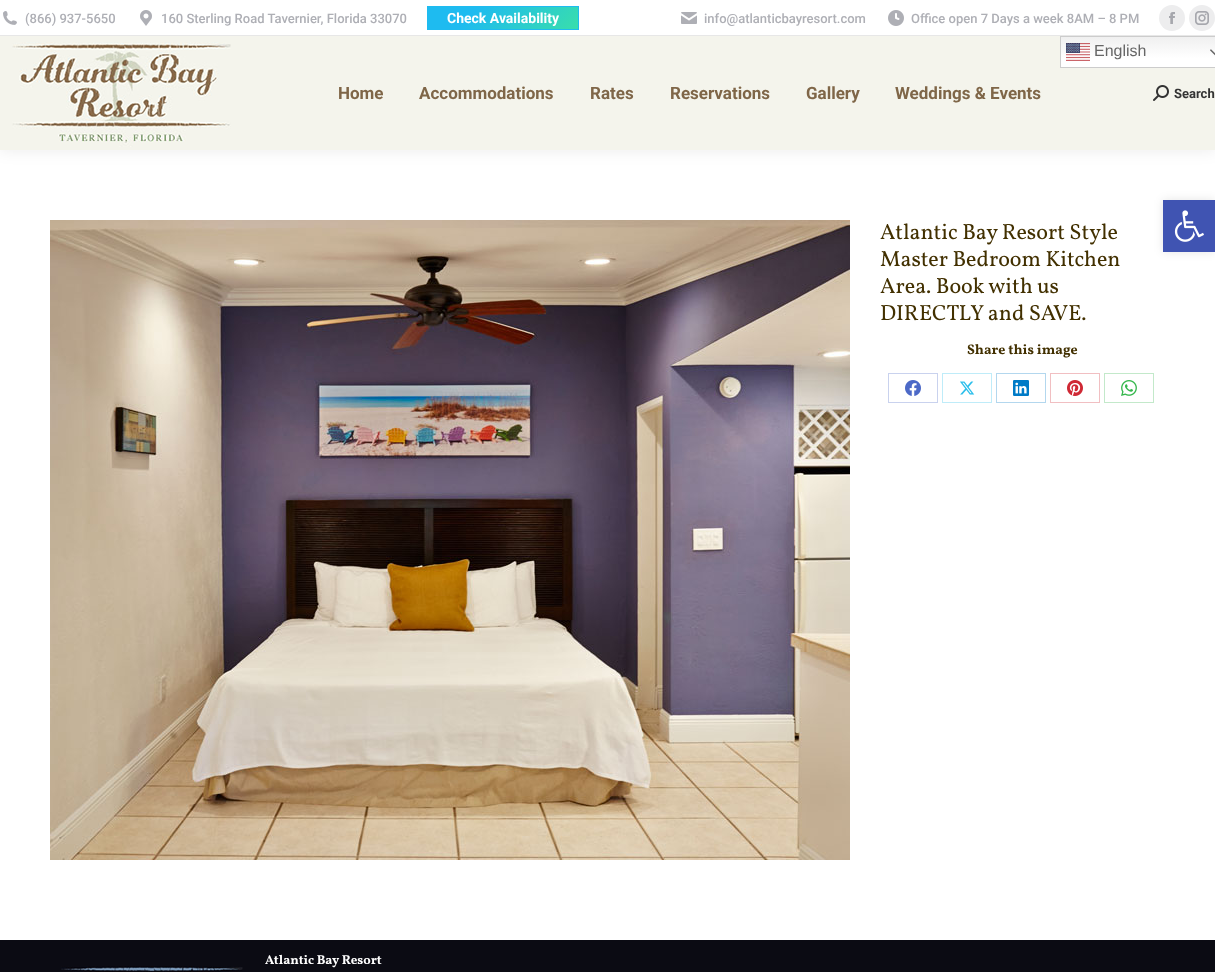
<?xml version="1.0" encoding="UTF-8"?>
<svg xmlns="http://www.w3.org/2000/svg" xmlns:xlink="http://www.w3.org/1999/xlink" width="1215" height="972">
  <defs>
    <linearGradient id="g1" gradientUnits="userSpaceOnUse" x1="459" y1="-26" x2="547" y2="62"><stop offset="0.3" stop-color="#1ebbf0" /><stop offset="1" stop-color="#39dfaa" /></linearGradient>
    <linearGradient id="g2" gradientUnits="userSpaceOnUse" x1="1147" y1="36" x2="1147" y2="68"><stop offset="0" stop-color="#efefef" /><stop offset="0.7" stop-color="#ffffff" /></linearGradient>
  </defs>
  <rect width="100%" height="100%" fill="#ffffff" />
  <rect x="-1" y="-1" width="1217" height="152" fill="#000000" fill-opacity="0.07" filter="blur(7.5px)" />
  <rect y="36" width="1215" height="114" fill="#f4f4ec" />
  <rect width="1215" height="35" fill="#ffffff" />
  <image x="3" y="11" width="14" height="14" xlink:href="image1.png" />
  <image x="140" y="10" width="12" height="16" xlink:href="image2.png" />
  <rect x="428" y="7" width="150" height="22" fill="url(#g1)" />
  <rect x="427.5" y="6.5" width="151" height="23" fill="none" stroke="#1ebbf0" />
  <image x="681" y="12" width="16" height="12" xlink:href="image3.png" />
  <image x="888" y="10" width="16" height="16" xlink:href="image4.png" />
  <circle cx="1172" cy="18" r="13" fill="#ededee" />
  <image x="1169" y="12" width="6" height="12" xlink:href="image5.png" />
  <circle cx="1202" cy="18" r="13" fill="#ededee" />
  <image x="1195" y="11" width="14" height="14" xlink:href="image6.png" />
  <rect y="35" width="1215" height="1" fill="#e7e7e7" />
  <image x="12" y="42" width="219" height="105" xlink:href="image7.png" />
  <rect x="1061" y="37" width="154" height="30" fill="url(#g2)" />
  <rect x="1060.5" y="36.5" width="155" height="31" fill="none" stroke="#cccccc" />
  <image x="1066" y="43" width="24" height="18" xlink:href="image8.png" />
  <image x="1210" y="49" width="5" height="7" xlink:href="image9.png" />
  <image x="1153" y="85" width="16" height="16" xlink:href="image10.png" />
  <image x="50" y="220" width="800" height="640" xlink:href="image11.png" />
  <rect x="888.5" y="373.5" width="49" height="29" fill="none" stroke="#c9d2ee" />
  <image x="905" y="380" width="16" height="16" xlink:href="image12.png" />
  <rect x="942.5" y="373.5" width="49" height="29" fill="none" stroke="#bfecf9" />
  <image x="960" y="381" width="15" height="14" xlink:href="image13.png" />
  <rect x="996.5" y="373.5" width="49" height="29" fill="none" stroke="#b3d7ee" />
  <image x="1013" y="380" width="16" height="16" xlink:href="image14.png" />
  <rect x="1050.5" y="373.5" width="49" height="29" fill="none" stroke="#f1bfc2" />
  <image x="1067" y="380" width="16" height="16" xlink:href="image15.png" />
  <rect x="1104.5" y="373.5" width="49" height="29" fill="none" stroke="#c3e9ca" />
  <image x="1121" y="380" width="16" height="16" xlink:href="image16.png" />
  <rect y="940" width="1215" height="32" fill="#0b0b13" />
  <image x="61" y="966" width="182" height="6" xlink:href="image17.png" />
  <rect x="1163" y="200" width="52" height="52" fill="#000000" fill-opacity="0.1" filter="blur(5px)" />
  <rect x="1163" y="200" width="52" height="52" fill="#4054b2" />
  <image x="1174" y="210" width="30" height="32" xlink:href="image18.png" />
  <text x="25" y="23" style="font-family: Roboto; font-size: 13px; font-weight: 500; fill: #aeafb5">(866) 937-5650</text>
  <text x="161" y="23" style="font-family: Roboto; font-size: 13px; font-weight: 500; fill: #aeafb5">160 Sterling Road Tavernier, Florida 33070</text>
  <text x="447" y="23" style="font-family: Roboto; font-size: 14px; font-weight: bold; fill: #ffffff">Check Availability</text>
  <text x="704" y="23" style="font-family: Roboto; font-size: 13px; font-weight: 500; fill: #aeafb5">info@atlanticbayresort.com</text>
  <text x="911" y="23" style="font-family: Roboto; font-size: 13px; font-weight: 500; fill: #aeafb5">Office open 7 Days a week 8AM – 8 PM</text>
  <text x="1094" y="56" style="font-family: Liberation Sans; font-size: 16px; fill: #666666">English</text>
  <text x="338" y="99" style="font-family: Roboto; font-size: 17px; font-weight: bold; fill: #7f6648">Home</text>
  <text x="419" y="99" style="font-family: Roboto; font-size: 17px; font-weight: bold; fill: #7f6648">Accommodations</text>
  <text x="590" y="99" style="font-family: Roboto; font-size: 17px; font-weight: bold; fill: #7f6648">Rates</text>
  <text x="670" y="99" style="font-family: Roboto; font-size: 17px; font-weight: bold; fill: #7f6648">Reservations</text>
  <text x="806" y="99" style="font-family: Roboto; font-size: 17px; font-weight: bold; fill: #7f6648">Gallery</text>
  <text x="895" y="99" style="font-family: Roboto; font-size: 17px; font-weight: bold; fill: #7f6648">Weddings &amp; Events</text>
  <text x="1174" y="98" style="font-family: Roboto; font-size: 13px; font-weight: bold; fill: #333333">Search</text>
  <text x="880" y="239" style="font-family: Vollkorn; font-size: 22px; fill: #423000">Atlantic Bay Resort Style</text>
  <text x="880" y="266" style="font-family: Vollkorn; font-size: 22px; fill: #423000">Master Bedroom Kitchen</text>
  <text x="880" y="293" style="font-family: Vollkorn; font-size: 22px; fill: #423000">Area. Book with us</text>
  <text x="880" y="320" style="font-family: Vollkorn; font-size: 22px; fill: #423000">DIRECTLY and SAVE.</text>
  <text x="967" y="354" style="font-family: Vollkorn; font-size: 14px; font-weight: bold; fill: #423000">Share this image</text>
  <text x="265" y="964" style="font-family: Vollkorn; font-size: 13px; font-weight: bold; fill: #ffffff">Atlantic Bay Resort</text>
</svg>
